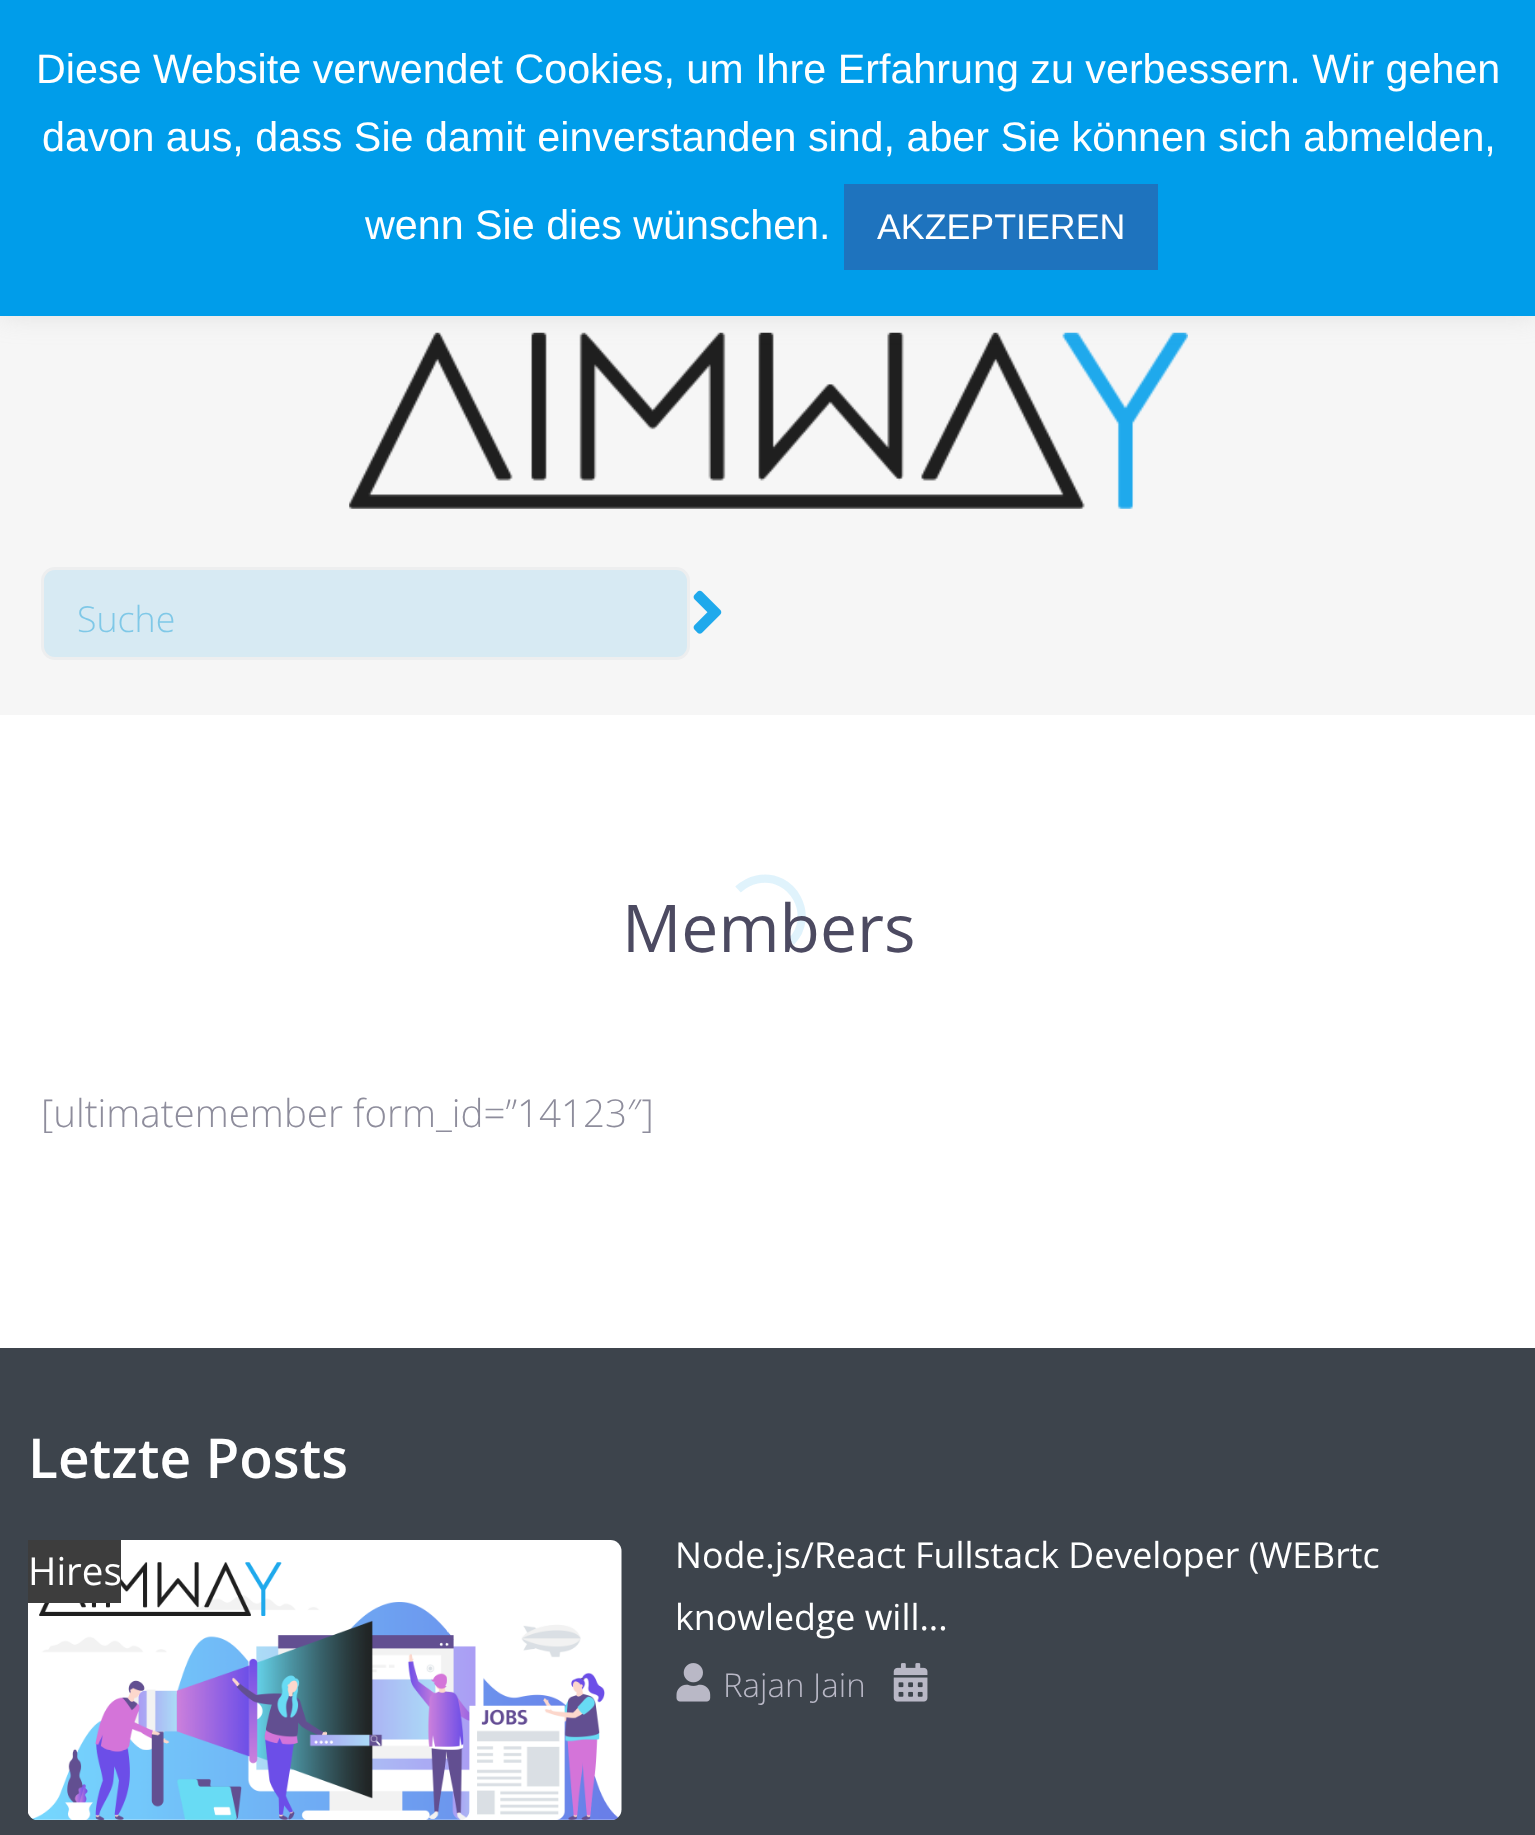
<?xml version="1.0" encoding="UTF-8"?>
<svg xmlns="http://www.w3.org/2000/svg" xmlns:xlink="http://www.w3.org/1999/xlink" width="1535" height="1835">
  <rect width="100%" height="100%" fill="#ffffff" />
  <rect y="316" width="1535" height="399" fill="#f6f6f6" />
  <image x="349" y="332" width="839" height="177" xlink:href="image1.png" />
  <rect y="-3" width="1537" height="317" fill="#acabab" fill-opacity="0.3" filter="blur(14px)" />
  <rect width="1535" height="316" fill="#009dea" />
  <rect x="844" y="184" width="314" height="86" fill="#1e73be" />
  <rect x="42.5" y="568.5" width="646" height="90" rx="12.5" fill="#d7eaf3" stroke="#edeeef" stroke-width="3" />
  <image x="693" y="590" width="29" height="44" xlink:href="image2.png" />
  <rect y="1348" width="1535" height="487" fill="#3d444c" />
  <image x="28" y="1540" width="594" height="280" xlink:href="image3.png" />
  <image x="676" y="1663" width="35" height="39" xlink:href="image4.png" />
  <image x="893" y="1663" width="35" height="39" xlink:href="image5.png" />
  <rect x="28" y="1540" width="93" height="63" fill="#3d3d3d" />
  <path d="M 738 889.5 c 5.5 -5 12 -8.5 19 -10 c 36 -7.5 59.5 37 34 62.5" fill="none" stroke="#009eea" stroke-opacity="0.12" stroke-width="8.2" />
  <text x="36" y="83" style="font-family: Liberation Sans; font-size: 41.25px; fill: #ffffff">Diese Website verwendet Cookies, um Ihre Erfahrung zu verbessern. Wir gehen</text>
  <text x="42" y="151" style="font-family: Liberation Sans; font-size: 41.25px; fill: #ffffff">davon aus, dass Sie damit einverstanden sind, aber Sie können sich abmelden,</text>
  <text x="365" y="239" style="font-family: Liberation Sans; font-size: 41.25px; fill: #ffffff">wenn Sie dies wünschen.</text>
  <text x="877" y="239" style="font-family: Liberation Sans; font-size: 35.75px; fill: #ffffff">AKZEPTIEREN</text>
  <text x="77" y="632" style="font-family: Open Sans; font-size: 35.75px; font-weight: 300; fill: #7fc8e7">Suche</text>
  <text x="622" y="952" style="font-family: Open Sans; font-size: 66px; fill: #4c4a61">Members</text>
  <text x="41" y="1127" style="font-family: Open Sans; font-size: 38.5px; font-weight: 300; fill: #8e8d9c">[ultimatemember form_id=”14123″]</text>
  <text x="28" y="1478" style="font-family: Open Sans; font-size: 55px; font-weight: 600; fill: #ffffff">Letzte Posts</text>
  <text x="675" y="1568" style="font-family: Open Sans; font-size: 35.75px; fill: #ffffff">Node.js/React Fullstack Developer (WEBrtc</text>
  <text x="675" y="1630" style="font-family: Open Sans; font-size: 35.75px; fill: #ffffff">knowledge will...</text>
  <text x="723" y="1697" style="font-family: Open Sans; font-size: 33px; font-weight: 300; fill: #b9b8c6">Rajan Jain</text>
  <text x="28" y="1585" style="font-family: Open Sans; font-size: 38.5px; fill: #ffffff">Hires</text>
</svg>
